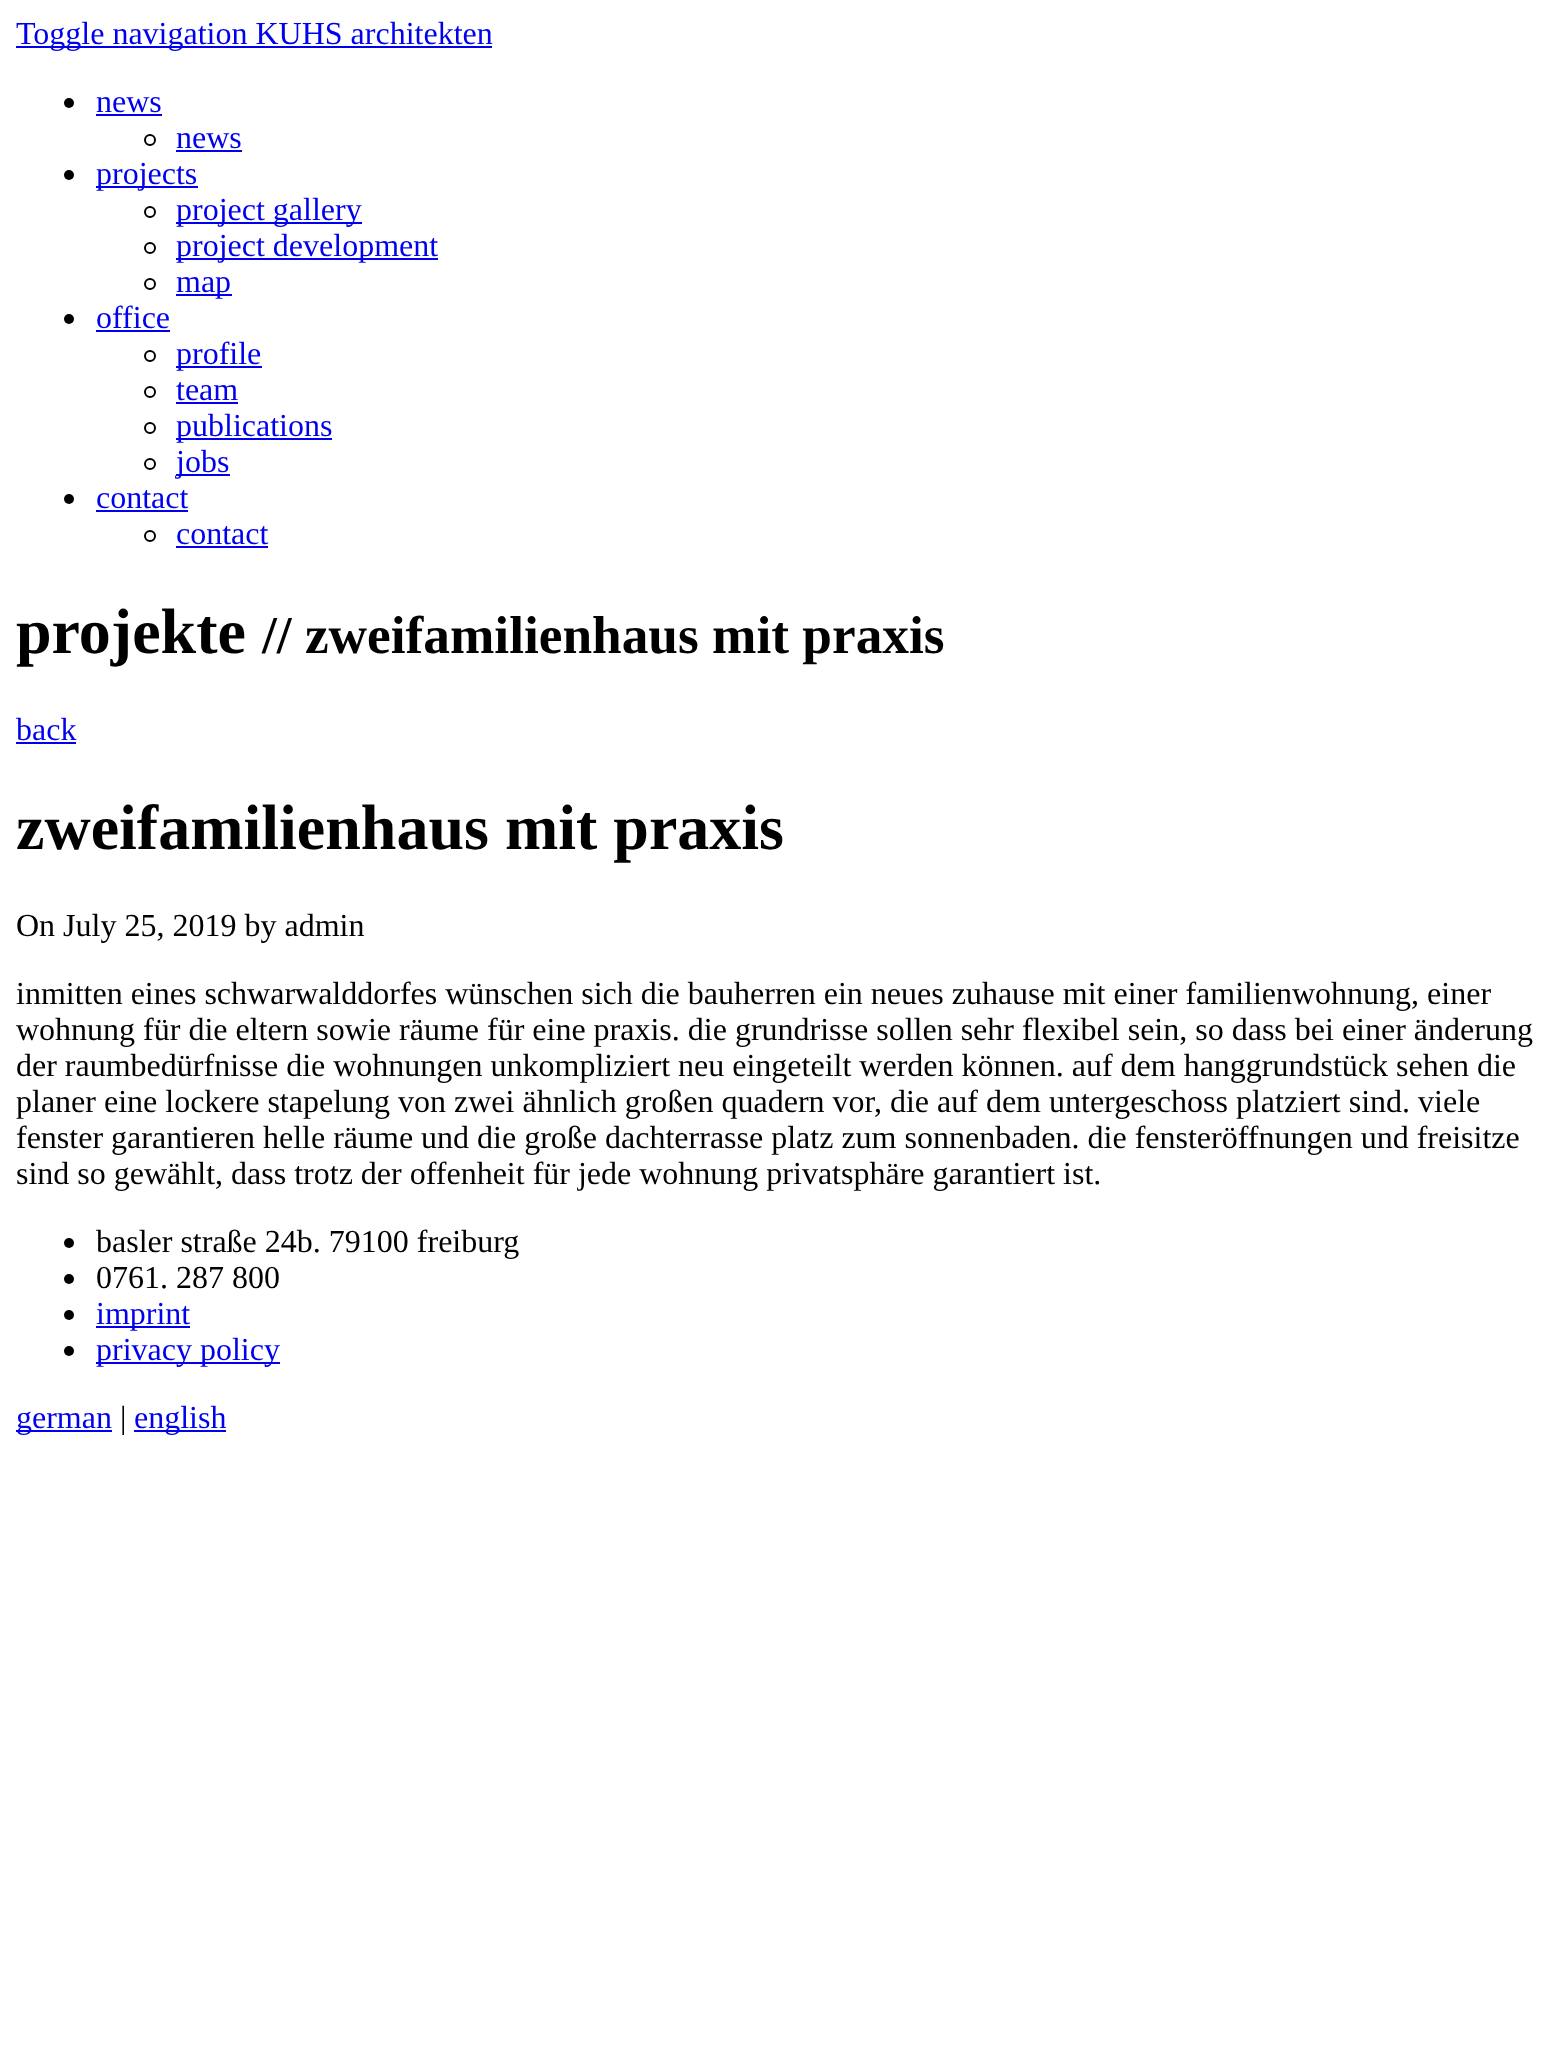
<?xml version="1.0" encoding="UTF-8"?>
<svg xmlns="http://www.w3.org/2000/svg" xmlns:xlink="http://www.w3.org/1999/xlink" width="1550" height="2059">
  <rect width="100%" height="100%" fill="#ffffff" />
  <rect x="16" y="46" width="476" height="2" fill="#0000ee" />
  <circle cx="69" cy="103" r="5" fill="#000000" />
  <rect x="96" y="114" width="66" height="2" fill="#0000ee" />
  <circle cx="150" cy="140" r="5" fill="none" stroke="#000000" stroke-width="2" />
  <rect x="176" y="150" width="66" height="2" fill="#0000ee" />
  <circle cx="69" cy="175" r="5" fill="#000000" />
  <rect x="96" y="186" width="102" height="2" fill="#0000ee" />
  <circle cx="150" cy="212" r="5" fill="none" stroke="#000000" stroke-width="2" />
  <rect x="176" y="222" width="186" height="2" fill="#0000ee" />
  <circle cx="150" cy="248" r="5" fill="none" stroke="#000000" stroke-width="2" />
  <rect x="176" y="258" width="262" height="2" fill="#0000ee" />
  <circle cx="150" cy="284" r="5" fill="none" stroke="#000000" stroke-width="2" />
  <rect x="176" y="294" width="56" height="2" fill="#0000ee" />
  <circle cx="69" cy="319" r="5" fill="#000000" />
  <rect x="96" y="330" width="74" height="2" fill="#0000ee" />
  <circle cx="150" cy="356" r="5" fill="none" stroke="#000000" stroke-width="2" />
  <rect x="176" y="366" width="86" height="2" fill="#0000ee" />
  <circle cx="150" cy="392" r="5" fill="none" stroke="#000000" stroke-width="2" />
  <rect x="176" y="402" width="62" height="2" fill="#0000ee" />
  <circle cx="150" cy="428" r="5" fill="none" stroke="#000000" stroke-width="2" />
  <rect x="176" y="438" width="156" height="2" fill="#0000ee" />
  <circle cx="150" cy="464" r="5" fill="none" stroke="#000000" stroke-width="2" />
  <rect x="176" y="474" width="54" height="2" fill="#0000ee" />
  <circle cx="69" cy="499" r="5" fill="#000000" />
  <rect x="96" y="510" width="92" height="2" fill="#0000ee" />
  <circle cx="150" cy="536" r="5" fill="none" stroke="#000000" stroke-width="2" />
  <rect x="176" y="546" width="92" height="2" fill="#0000ee" />
  <rect x="16" y="742" width="60" height="2" fill="#0000ee" />
  <circle cx="69" cy="1243" r="5" fill="#000000" />
  <circle cx="69" cy="1279" r="5" fill="#000000" />
  <circle cx="69" cy="1315" r="5" fill="#000000" />
  <rect x="96" y="1326" width="94" height="2" fill="#0000ee" />
  <circle cx="69" cy="1351" r="5" fill="#000000" />
  <rect x="96" y="1362" width="184" height="2" fill="#0000ee" />
  <rect x="16" y="1430" width="96" height="2" fill="#0000ee" />
  <rect x="134" y="1430" width="92" height="2" fill="#0000ee" />
  <text x="16" y="44" style="font-family: Liberation Serif; font-size: 32px; fill: #0000ee">Toggle navigation KUHS architekten</text>
  <text x="96" y="112" style="font-family: Liberation Serif; font-size: 32px; fill: #0000ee">news</text>
  <text x="176" y="148" style="font-family: Liberation Serif; font-size: 32px; fill: #0000ee">news</text>
  <text x="96" y="184" style="font-family: Liberation Serif; font-size: 32px; fill: #0000ee">projects</text>
  <text x="176" y="220" style="font-family: Liberation Serif; font-size: 32px; fill: #0000ee">project gallery</text>
  <text x="176" y="256" style="font-family: Liberation Serif; font-size: 32px; fill: #0000ee">project development</text>
  <text x="176" y="292" style="font-family: Liberation Serif; font-size: 32px; fill: #0000ee">map</text>
  <text x="96" y="328" style="font-family: Liberation Serif; font-size: 32px; fill: #0000ee">office</text>
  <text x="176" y="364" style="font-family: Liberation Serif; font-size: 32px; fill: #0000ee">profile</text>
  <text x="176" y="400" style="font-family: Liberation Serif; font-size: 32px; fill: #0000ee">team</text>
  <text x="176" y="436" style="font-family: Liberation Serif; font-size: 32px; fill: #0000ee">publications</text>
  <text x="176" y="472" style="font-family: Liberation Serif; font-size: 32px; fill: #0000ee">jobs</text>
  <text x="96" y="508" style="font-family: Liberation Serif; font-size: 32px; fill: #0000ee">contact</text>
  <text x="176" y="544" style="font-family: Liberation Serif; font-size: 32px; fill: #0000ee">contact</text>
  <text x="16" y="653" style="font-family: Liberation Serif; font-size: 64px; font-weight: bold; fill: #000000">projekte</text>
  <text x="262" y="653" style="font-family: Liberation Serif; font-size: 53.3px; font-weight: bold; fill: #000000">// zweifamilienhaus mit praxis</text>
  <text x="16" y="740" style="font-family: Liberation Serif; font-size: 32px; fill: #0000ee">back</text>
  <text x="16" y="849" style="font-family: Liberation Serif; font-size: 64px; font-weight: bold; fill: #000000">zweifamilienhaus mit praxis</text>
  <text x="16" y="936" style="font-family: Liberation Serif; font-size: 32px; fill: #000000">On July 25, 2019 by admin</text>
  <text x="16" y="1004" style="font-family: Liberation Serif; font-size: 32px; fill: #000000">inmitten eines schwarwalddorfes wünschen sich die bauherren ein neues zuhause mit einer familienwohnung, einer</text>
  <text x="16" y="1040" style="font-family: Liberation Serif; font-size: 32px; fill: #000000">wohnung für die eltern sowie räume für eine praxis. die grundrisse sollen sehr flexibel sein, so dass bei einer änderung</text>
  <text x="16" y="1076" style="font-family: Liberation Serif; font-size: 32px; fill: #000000">der raumbedürfnisse die wohnungen unkompliziert neu eingeteilt werden können. auf dem hanggrundstück sehen die</text>
  <text x="16" y="1112" style="font-family: Liberation Serif; font-size: 32px; fill: #000000">planer eine lockere stapelung von zwei ähnlich großen quadern vor, die auf dem untergeschoss platziert sind. viele</text>
  <text x="16" y="1148" style="font-family: Liberation Serif; font-size: 32px; fill: #000000">fenster garantieren helle räume und die große dachterrasse platz zum sonnenbaden. die fensteröffnungen und freisitze</text>
  <text x="16" y="1184" style="font-family: Liberation Serif; font-size: 32px; fill: #000000">sind so gewählt, dass trotz der offenheit für jede wohnung privatsphäre garantiert ist.</text>
  <text x="96" y="1252" style="font-family: Liberation Serif; font-size: 32px; fill: #000000">basler straße 24b. 79100 freiburg</text>
  <text x="96" y="1288" style="font-family: Liberation Serif; font-size: 32px; fill: #000000">0761. 287 800</text>
  <text x="96" y="1324" style="font-family: Liberation Serif; font-size: 32px; fill: #0000ee">imprint</text>
  <text x="96" y="1360" style="font-family: Liberation Serif; font-size: 32px; fill: #0000ee">privacy policy</text>
  <text x="16" y="1428" style="font-family: Liberation Serif; font-size: 32px; fill: #0000ee">german</text>
  <text x="120" y="1428" style="font-family: Liberation Serif; font-size: 32px; fill: #000000">|</text>
  <text x="134" y="1428" style="font-family: Liberation Serif; font-size: 32px; fill: #0000ee">english</text>
</svg>
